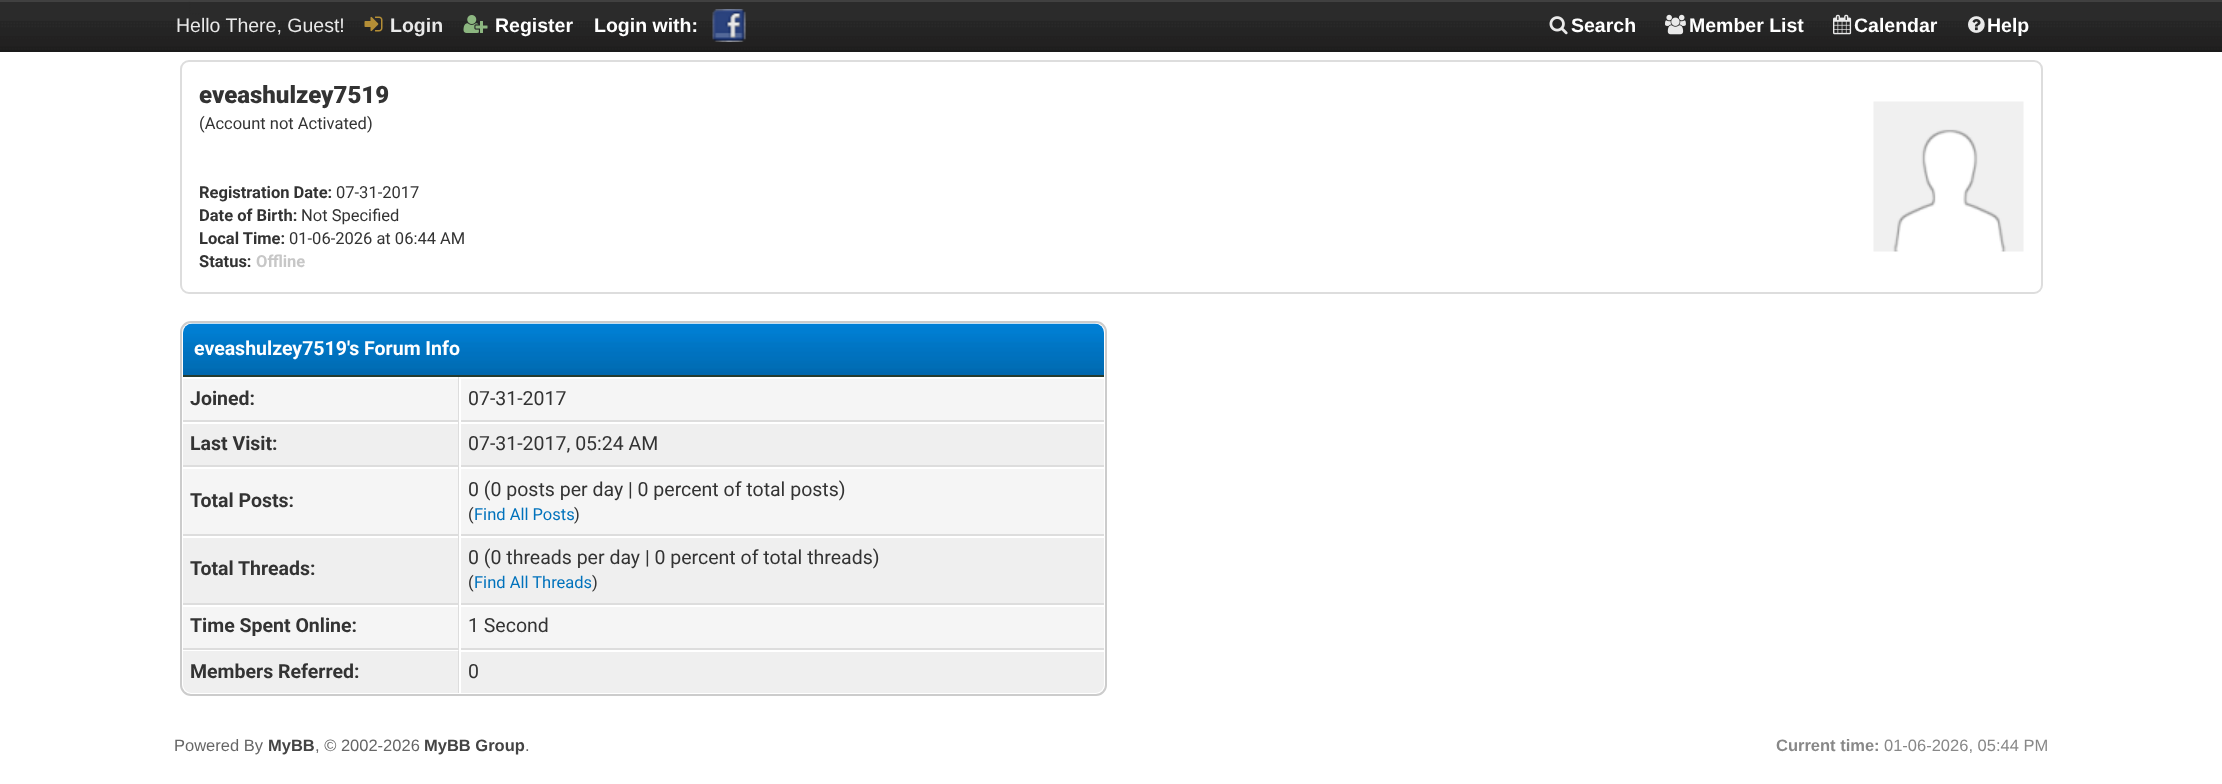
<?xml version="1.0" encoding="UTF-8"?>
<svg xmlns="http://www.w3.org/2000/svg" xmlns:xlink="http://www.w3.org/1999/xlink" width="2222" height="784">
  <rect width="100%" height="100%" fill="#ffffff" />
  <rect width="2222" height="50" fill="#272727" />
  <image x="188" y="1" width="15" height="14" xlink:href="image9.png" />
  <image x="0" y="1" width="2222" height="49" xlink:href="image1.png" />
  <rect width="2222" height="2" fill="#444444" fill-opacity="0.9" />
  <rect y="50" width="2222" height="2" fill="#1a1a1a" />
  <image x="364" y="16" width="19" height="16" xlink:href="image2.png" />
  <image x="463" y="15" width="25" height="18" xlink:href="image3.png" />
  <image x="712" y="9" width="34" height="33" xlink:href="image4.png" />
  <image x="1549" y="16" width="19" height="19" xlink:href="image5.png" />
  <image x="1665" y="14" width="21" height="21" xlink:href="image6.png" />
  <image x="1833" y="14" width="19" height="21" xlink:href="image7.png" />
  <image x="1968" y="16" width="17" height="17" xlink:href="image8.png" />
  <rect x="181" y="61" width="1861" height="232" rx="8" fill="none" stroke="#dddddd" stroke-width="2" />
  <image x="1873" y="101" width="151" height="151" xlink:href="image10.png" />
  <rect x="181" y="322" width="925" height="373" rx="10" fill="none" stroke="#cccccc" stroke-width="2" />
  <image x="183" y="323" width="921" height="52" xlink:href="image11.png" />
  <rect x="183" y="375" width="921" height="2" fill="#263c30" />
  <rect x="183" y="379" width="275" height="41" fill="#f5f5f5" />
  <rect x="458" y="377" width="1" height="273" fill="#dddddd" />
  <rect x="183" y="420" width="921" height="2" fill="#dddddd" />
  <rect x="461" y="379" width="643" height="41" fill="#f5f5f5" />
  <rect x="459" y="420" width="2" height="2" fill="#ffffff" />
  <rect x="183" y="424" width="275" height="41" fill="#efefef" />
  <rect x="183" y="465" width="921" height="2" fill="#dddddd" />
  <rect x="461" y="424" width="643" height="41" fill="#efefef" />
  <rect x="459" y="465" width="2" height="2" fill="#ffffff" />
  <rect x="183" y="469" width="275" height="65" fill="#f5f5f5" />
  <rect x="183" y="534" width="921" height="2" fill="#dddddd" />
  <rect x="461" y="469" width="643" height="65" fill="#f5f5f5" />
  <rect x="459" y="534" width="2" height="2" fill="#ffffff" />
  <rect x="183" y="538" width="275" height="65" fill="#efefef" />
  <rect x="183" y="603" width="921" height="2" fill="#dddddd" />
  <rect x="461" y="538" width="643" height="65" fill="#efefef" />
  <rect x="459" y="603" width="2" height="2" fill="#ffffff" />
  <rect x="183" y="607" width="275" height="41" fill="#f5f5f5" />
  <rect x="183" y="648" width="921" height="2" fill="#dddddd" />
  <rect x="461" y="607" width="643" height="41" fill="#f5f5f5" />
  <rect x="459" y="648" width="2" height="2" fill="#ffffff" />
  <path d="M 183 650 h 276 v 43 h -267 c -5 0 -9 -4 -9 -9 z" fill="#efefef" />
  <rect x="183" y="650" width="275" height="1" fill="#ffffff" />
  <path d="M 458 651 l 1 -1 v 43 h -1 z" fill="#dddddd" />
  <path d="M 459 650 h 645 v 34 c 0 5 -4 9 -9 9 h -636 z" fill="#efefef" />
  <rect x="459" y="650" width="645" height="2" fill="#ffffff" />
  <rect x="459" y="650" width="2" height="43" fill="#ffffff" />
  <text x="176" y="32" style="font-family: Liberation Sans; font-size: 19.5px; fill: #e9e9e9">Hello There, Guest!</text>
  <text x="390" y="32" style="font-family: Liberation Sans; font-size: 19.5px; font-weight: bold; fill: #e9e9e9">Login</text>
  <text x="495" y="32" style="font-family: Liberation Sans; font-size: 19.5px; font-weight: bold; fill: #ffffff">Register</text>
  <text x="594" y="32" style="font-family: Liberation Sans; font-size: 19.5px; font-weight: bold; fill: #ffffff">Login with:</text>
  <text x="1571" y="32" style="font-family: Liberation Sans; font-size: 19.5px; font-weight: bold; fill: #ffffff">Search</text>
  <text x="1689" y="32" style="font-family: Liberation Sans; font-size: 19.5px; font-weight: bold; fill: #ffffff">Member List</text>
  <text x="1854" y="32" style="font-family: Liberation Sans; font-size: 19.5px; font-weight: bold; fill: #ffffff">Calendar</text>
  <text x="1987" y="32" style="font-family: Liberation Sans; font-size: 19.5px; font-weight: bold; fill: #ffffff">Help</text>
  <text x="199" y="103" style="font-family: Roboto; font-size: 24px; font-weight: 900; fill: #333333">eveashulzey7519</text>
  <text x="199" y="129" style="font-family: Roboto; font-size: 16.5px; fill: #333333">(Account not Activated)</text>
  <text x="199" y="198" style="font-family: Roboto; font-size: 16.5px; font-weight: bold; fill: #333333">Registration Date:</text>
  <text x="336" y="198" style="font-family: Roboto; font-size: 16.5px; fill: #333333">07-31-2017</text>
  <text x="199" y="221" style="font-family: Roboto; font-size: 16.5px; font-weight: bold; fill: #333333">Date of Birth:</text>
  <text x="301" y="221" style="font-family: Roboto; font-size: 16.5px; fill: #333333">Not Specified</text>
  <text x="199" y="244" style="font-family: Roboto; font-size: 16.5px; font-weight: bold; fill: #333333">Local Time:</text>
  <text x="289" y="244" style="font-family: Roboto; font-size: 16.5px; fill: #333333">01-06-2026 at 06:44 AM</text>
  <text x="199" y="267" style="font-family: Roboto; font-size: 16.5px; font-weight: bold; fill: #333333">Status:</text>
  <text x="256" y="267" style="font-family: Roboto; font-size: 16.5px; font-weight: bold; fill: #c7c7c7">Offline</text>
  <text x="194" y="355" style="font-family: Roboto; font-size: 19.5px; font-weight: bold; fill: #ffffff">eveashulzey7519's Forum Info</text>
  <text x="190" y="405" style="font-family: Roboto; font-size: 19.5px; font-weight: bold; fill: #333333">Joined:</text>
  <text x="468" y="405" style="font-family: Roboto; font-size: 19.5px; fill: #333333">07-31-2017</text>
  <text x="190" y="450" style="font-family: Roboto; font-size: 19.5px; font-weight: bold; fill: #333333">Last Visit:</text>
  <text x="468" y="450" style="font-family: Roboto; font-size: 19.5px; fill: #333333">07-31-2017, 05:24 AM</text>
  <text x="190" y="507" style="font-family: Roboto; font-size: 19.5px; font-weight: bold; fill: #333333">Total Posts:</text>
  <text x="468" y="496" style="font-family: Roboto; font-size: 19.5px; fill: #333333">0 (0 posts per day | 0 percent of total posts)</text>
  <text x="468" y="520" style="font-family: Roboto; font-size: 16.5px; fill: #333333">(</text>
  <text x="474" y="520" style="font-family: Roboto; font-size: 16.5px; fill: #0072bc">Find All Posts</text>
  <text x="574" y="520" style="font-family: Roboto; font-size: 16.5px; fill: #333333">)</text>
  <text x="190" y="575" style="font-family: Roboto; font-size: 19.5px; font-weight: bold; fill: #333333">Total Threads:</text>
  <text x="468" y="564" style="font-family: Roboto; font-size: 19.5px; fill: #333333">0 (0 threads per day | 0 percent of total threads)</text>
  <text x="468" y="588" style="font-family: Roboto; font-size: 16.5px; fill: #333333">(</text>
  <text x="474" y="588" style="font-family: Roboto; font-size: 16.5px; fill: #0072bc">Find All Threads</text>
  <text x="592" y="588" style="font-family: Roboto; font-size: 16.5px; fill: #333333">)</text>
  <text x="190" y="632" style="font-family: Roboto; font-size: 19.5px; font-weight: bold; fill: #333333">Time Spent Online:</text>
  <text x="468" y="632" style="font-family: Roboto; font-size: 19.5px; fill: #333333">1 Second</text>
  <text x="190" y="678" style="font-family: Roboto; font-size: 19.5px; font-weight: bold; fill: #333333">Members Referred:</text>
  <text x="468" y="678" style="font-family: Roboto; font-size: 19.5px; fill: #333333">0</text>
  <text x="174" y="751" style="font-family: Liberation Sans; font-size: 16.5px; fill: #666666">Powered By</text>
  <text x="268" y="751" style="font-family: Liberation Sans; font-size: 16.5px; font-weight: bold; fill: #444444">MyBB</text>
  <text x="315" y="751" style="font-family: Liberation Sans; font-size: 16.5px; fill: #666666">, © 2002-2026</text>
  <text x="424" y="751" style="font-family: Liberation Sans; font-size: 16.5px; font-weight: bold; fill: #444444">MyBB Group</text>
  <text x="525" y="751" style="font-family: Liberation Sans; font-size: 16.5px; fill: #666666">.</text>
  <text x="1776" y="751" style="font-family: Liberation Sans; font-size: 16.5px; font-weight: bold; fill: #888888">Current time:</text>
  <text x="1884" y="751" style="font-family: Liberation Sans; font-size: 16.5px; fill: #888888">01-06-2026, 05:44 PM</text>
</svg>
